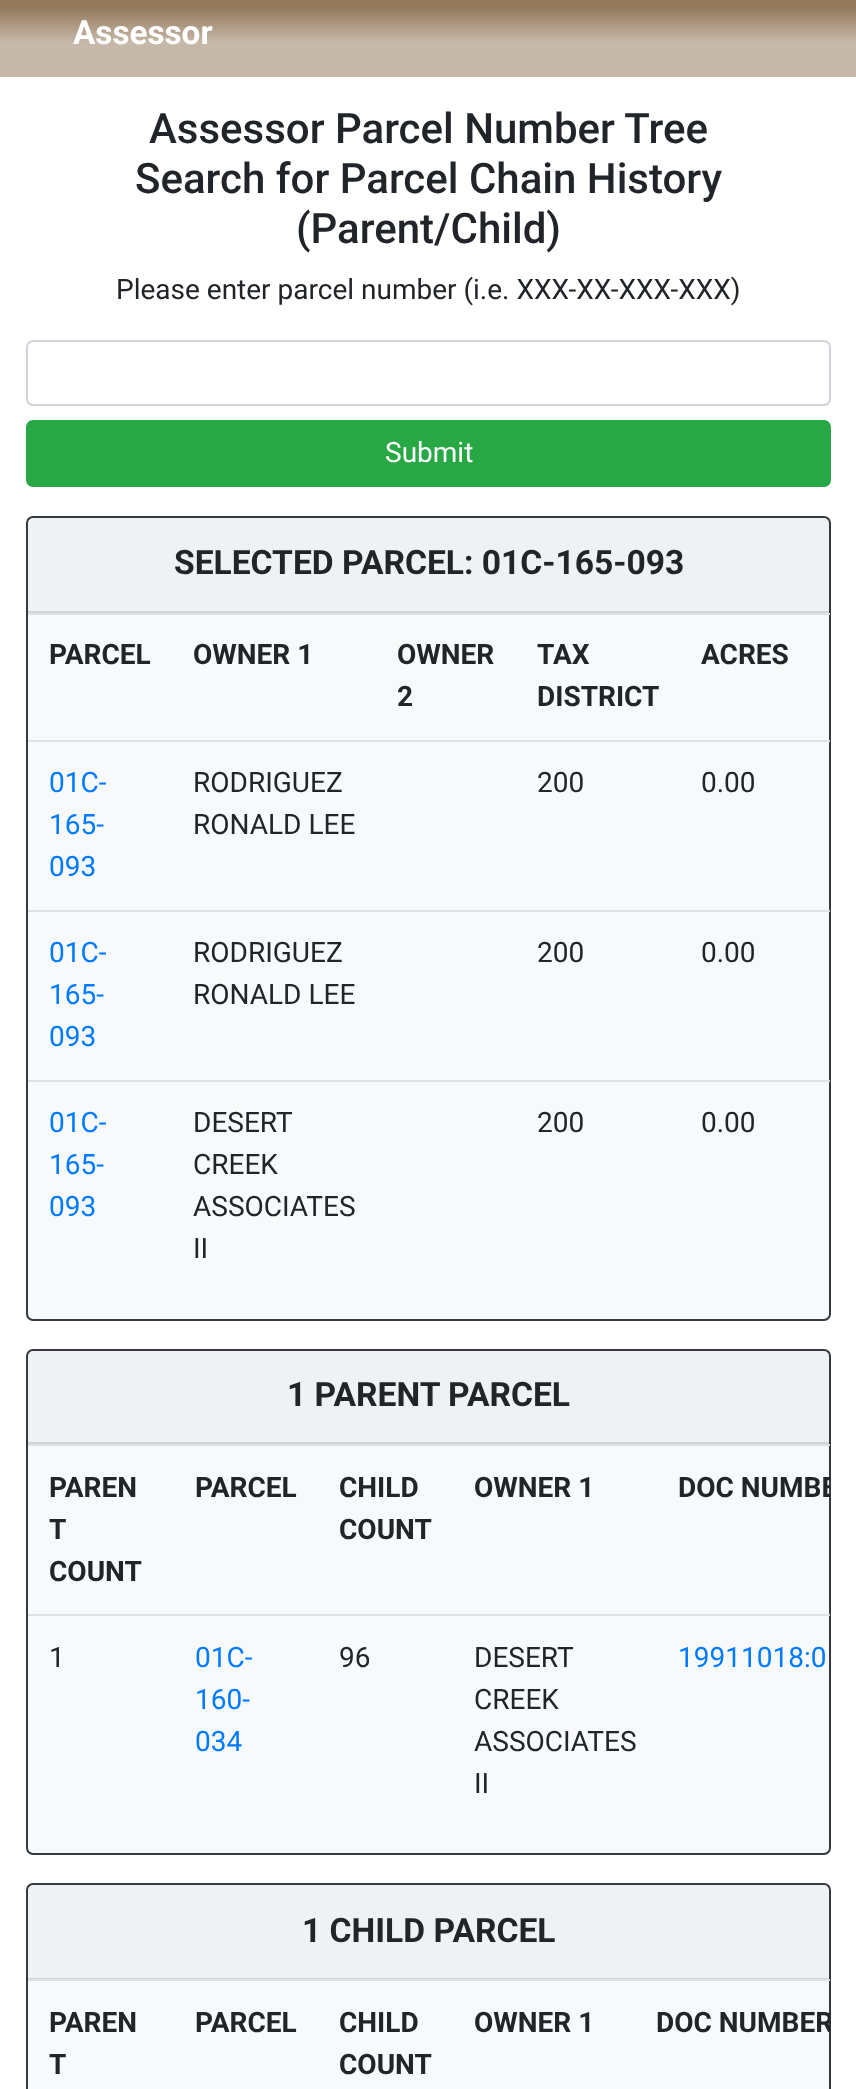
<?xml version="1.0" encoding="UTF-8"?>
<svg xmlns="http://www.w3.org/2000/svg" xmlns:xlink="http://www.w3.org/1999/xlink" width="856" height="2089">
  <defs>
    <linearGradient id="g1" gradientUnits="userSpaceOnUse" x1="429" y1="0" x2="429" y2="77"><stop offset="0.1" stop-color="#94795b" /><stop offset="0.55" stop-color="#c5b8a8" /></linearGradient>
    <clipPath id="clip1"><rect x="28" y="1444" width="802" height="409" /></clipPath>
    <clipPath id="clip2"><rect x="28" y="1979" width="802" height="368" /></clipPath>
  </defs>
  <rect width="100%" height="100%" fill="#ffffff" />
  <rect width="856" height="77" fill="url(#g1)" />
  <rect x="27" y="341" width="803" height="64" rx="6" fill="none" stroke="#ced4da" stroke-width="2" />
  <rect x="27" y="421" width="803" height="65" rx="6" fill="#28a745" stroke="#28a745" stroke-width="2" />
  <rect x="27" y="517" width="803" height="803" rx="6" fill="#f8f9fa" stroke="#343a40" stroke-width="2" />
  <rect x="28" y="518" width="802" height="95" fill="#000000" fill-opacity="0.03" />
  <rect x="28" y="611" width="802" height="2" fill="#000000" fill-opacity="0.12" />
  <rect x="28" y="613" width="802" height="2" fill="#dee2e6" />
  <rect x="28" y="740" width="802" height="2" fill="#dee2e6" />
  <rect x="28" y="910" width="802" height="2" fill="#dee2e6" />
  <rect x="28" y="1080" width="802" height="2" fill="#dee2e6" />
  <rect x="27" y="1350" width="803" height="504" rx="6" fill="#f8f9fa" stroke="#343a40" stroke-width="2" />
  <rect x="28" y="1351" width="802" height="93" fill="#000000" fill-opacity="0.03" />
  <rect x="28" y="1442" width="802" height="2" fill="#000000" fill-opacity="0.12" />
  <rect x="28" y="1444" width="802" height="2" fill="#dee2e6" />
  <rect x="28" y="1614" width="802" height="2" fill="#dee2e6" />
  <rect x="27" y="1884" width="803" height="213" rx="6" fill="#f8f9fa" stroke="#343a40" stroke-width="2" />
  <rect x="28" y="1885" width="802" height="94" fill="#000000" fill-opacity="0.03" />
  <rect x="28" y="1978" width="802" height="1" fill="#000000" fill-opacity="0.12" />
  <rect x="28" y="1979" width="802" height="2" fill="#dee2e6" />
  <text x="73" y="44" style="font-family: Roboto; font-size: 33.25px; font-weight: bold; fill: #ffffff">Assessor</text>
  <text x="149" y="143" style="font-family: Roboto; font-size: 42px; font-weight: 500; fill: #212529">Assessor Parcel Number Tree</text>
  <text x="135" y="193" style="font-family: Roboto; font-size: 42px; font-weight: 500; fill: #212529">Search for Parcel Chain History</text>
  <text x="296" y="243" style="font-family: Roboto; font-size: 42px; font-weight: 500; fill: #212529">(Parent/Child)</text>
  <text x="116" y="299" style="font-family: Roboto; font-size: 28px; fill: #212529">Please enter parcel number (i.e. XXX-XX-XXX-XXX)</text>
  <text x="385" y="462" style="font-family: Roboto; font-size: 28px; fill: #ffffff">Submit</text>
  <text x="174" y="574" style="font-family: Roboto; font-size: 33.6px; font-weight: bold; fill: #212529">SELECTED PARCEL: 01C-165-093</text>
  <text x="49" y="664" style="font-family: Roboto; font-size: 28px; font-weight: bold; fill: #212529">PARCEL</text>
  <text x="193" y="664" style="font-family: Roboto; font-size: 28px; font-weight: bold; fill: #212529">OWNER 1</text>
  <text x="397" y="664" style="font-family: Roboto; font-size: 28px; font-weight: bold; fill: #212529">OWNER</text>
  <text x="397" y="706" style="font-family: Roboto; font-size: 28px; font-weight: bold; fill: #212529">2</text>
  <text x="537" y="664" style="font-family: Roboto; font-size: 28px; font-weight: bold; fill: #212529">TAX</text>
  <text x="537" y="706" style="font-family: Roboto; font-size: 28px; font-weight: bold; fill: #212529">DISTRICT</text>
  <text x="701" y="664" style="font-family: Roboto; font-size: 28px; font-weight: bold; fill: #212529">ACRES</text>
  <text x="49" y="792" style="font-family: Roboto; font-size: 28px; fill: #007bff">01C-</text>
  <text x="49" y="834" style="font-family: Roboto; font-size: 28px; fill: #007bff">165-</text>
  <text x="49" y="876" style="font-family: Roboto; font-size: 28px; fill: #007bff">093</text>
  <text x="193" y="792" style="font-family: Roboto; font-size: 28px; fill: #212529">RODRIGUEZ</text>
  <text x="193" y="834" style="font-family: Roboto; font-size: 28px; fill: #212529">RONALD LEE</text>
  <text x="537" y="792" style="font-family: Roboto; font-size: 28px; fill: #212529">200</text>
  <text x="701" y="792" style="font-family: Roboto; font-size: 28px; fill: #212529">0.00</text>
  <text x="49" y="962" style="font-family: Roboto; font-size: 28px; fill: #007bff">01C-</text>
  <text x="49" y="1004" style="font-family: Roboto; font-size: 28px; fill: #007bff">165-</text>
  <text x="49" y="1046" style="font-family: Roboto; font-size: 28px; fill: #007bff">093</text>
  <text x="193" y="962" style="font-family: Roboto; font-size: 28px; fill: #212529">RODRIGUEZ</text>
  <text x="193" y="1004" style="font-family: Roboto; font-size: 28px; fill: #212529">RONALD LEE</text>
  <text x="537" y="962" style="font-family: Roboto; font-size: 28px; fill: #212529">200</text>
  <text x="701" y="962" style="font-family: Roboto; font-size: 28px; fill: #212529">0.00</text>
  <text x="49" y="1132" style="font-family: Roboto; font-size: 28px; fill: #007bff">01C-</text>
  <text x="49" y="1174" style="font-family: Roboto; font-size: 28px; fill: #007bff">165-</text>
  <text x="49" y="1216" style="font-family: Roboto; font-size: 28px; fill: #007bff">093</text>
  <text x="193" y="1132" style="font-family: Roboto; font-size: 28px; fill: #212529">DESERT</text>
  <text x="193" y="1174" style="font-family: Roboto; font-size: 28px; fill: #212529">CREEK</text>
  <text x="193" y="1216" style="font-family: Roboto; font-size: 28px; fill: #212529">ASSOCIATES</text>
  <text x="193" y="1258" style="font-family: Roboto; font-size: 28px; fill: #212529">II</text>
  <text x="537" y="1132" style="font-family: Roboto; font-size: 28px; fill: #212529">200</text>
  <text x="701" y="1132" style="font-family: Roboto; font-size: 28px; fill: #212529">0.00</text>
  <text x="287" y="1406" style="font-family: Roboto; font-size: 33.6px; font-weight: bold; fill: #212529">1 PARENT PARCEL</text>
  <text x="49" y="1497" style="font-family: Roboto; font-size: 28px; font-weight: bold; fill: #212529">PAREN</text>
  <text x="49" y="1539" style="font-family: Roboto; font-size: 28px; font-weight: bold; fill: #212529">T</text>
  <text x="49" y="1581" style="font-family: Roboto; font-size: 28px; font-weight: bold; fill: #212529">COUNT</text>
  <text x="195" y="1497" style="font-family: Roboto; font-size: 28px; font-weight: bold; fill: #212529">PARCEL</text>
  <text x="339" y="1497" style="font-family: Roboto; font-size: 28px; font-weight: bold; fill: #212529">CHILD</text>
  <text x="339" y="1539" style="font-family: Roboto; font-size: 28px; font-weight: bold; fill: #212529">COUNT</text>
  <text x="474" y="1497" style="font-family: Roboto; font-size: 28px; font-weight: bold; fill: #212529">OWNER 1</text>
  <g clip-path="url(#clip1)">
    <text x="678" y="1497" style="font-family: Roboto; font-size: 28px; font-weight: bold; fill: #212529">DOC NUMBE</text>
  </g>
  <text x="49" y="1667" style="font-family: Roboto; font-size: 28px; fill: #212529">1</text>
  <text x="195" y="1667" style="font-family: Roboto; font-size: 28px; fill: #007bff">01C-</text>
  <text x="195" y="1709" style="font-family: Roboto; font-size: 28px; fill: #007bff">160-</text>
  <text x="195" y="1751" style="font-family: Roboto; font-size: 28px; fill: #007bff">034</text>
  <text x="339" y="1667" style="font-family: Roboto; font-size: 28px; fill: #212529">96</text>
  <text x="474" y="1667" style="font-family: Roboto; font-size: 28px; fill: #212529">DESERT</text>
  <text x="474" y="1709" style="font-family: Roboto; font-size: 28px; fill: #212529">CREEK</text>
  <text x="474" y="1751" style="font-family: Roboto; font-size: 28px; fill: #212529">ASSOCIATES</text>
  <text x="474" y="1793" style="font-family: Roboto; font-size: 28px; fill: #212529">II</text>
  <text x="678" y="1667" style="font-family: Roboto; font-size: 28px; fill: #007bff">19911018:0</text>
  <text x="302" y="1942" style="font-family: Roboto; font-size: 33.6px; font-weight: bold; fill: #212529">1 CHILD PARCEL</text>
  <text x="49" y="2032" style="font-family: Roboto; font-size: 28px; font-weight: bold; fill: #212529">PAREN</text>
  <text x="49" y="2074" style="font-family: Roboto; font-size: 28px; font-weight: bold; fill: #212529">T</text>
  <text x="195" y="2032" style="font-family: Roboto; font-size: 28px; font-weight: bold; fill: #212529">PARCEL</text>
  <text x="339" y="2032" style="font-family: Roboto; font-size: 28px; font-weight: bold; fill: #212529">CHILD</text>
  <text x="339" y="2074" style="font-family: Roboto; font-size: 28px; font-weight: bold; fill: #212529">COUNT</text>
  <text x="474" y="2032" style="font-family: Roboto; font-size: 28px; font-weight: bold; fill: #212529">OWNER 1</text>
  <g clip-path="url(#clip2)">
    <text x="656" y="2032" style="font-family: Roboto; font-size: 28px; font-weight: bold; fill: #212529">DOC NUMBER</text>
  </g>
</svg>
